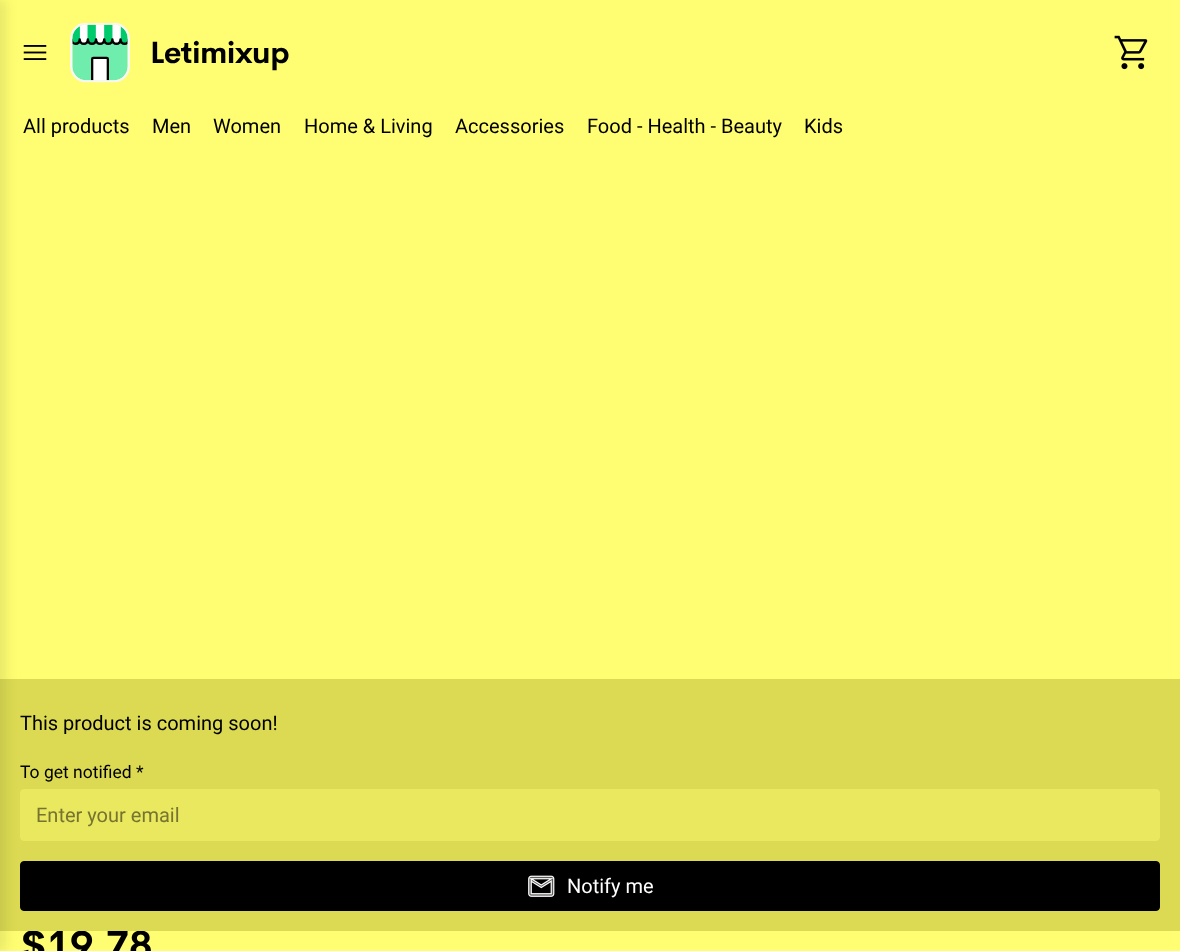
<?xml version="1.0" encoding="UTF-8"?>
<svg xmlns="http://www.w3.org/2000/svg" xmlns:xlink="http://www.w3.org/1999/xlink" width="1180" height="951">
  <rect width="100%" height="100%" fill="#fffd71" />
  <image x="23" y="45" width="24" height="15" xlink:href="image1.png" />
  <image x="70" y="23" width="60" height="60" xlink:href="image2.png" />
  <image x="1114" y="35" width="34" height="35" xlink:href="image3.png" />
  <text x="150" y="63" style="font-family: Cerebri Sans; font-size: 30px; font-weight: bold; letter-spacing: -0.5px; fill: #000000">Letimixup</text>
  <text x="23" y="133" style="font-family: Roboto; font-size: 20px; fill: #000000">All products</text>
  <text x="152" y="133" style="font-family: Roboto; font-size: 20px; fill: #000000">Men</text>
  <text x="213" y="133" style="font-family: Roboto; font-size: 20px; fill: #000000">Women</text>
  <text x="304" y="133" style="font-family: Roboto; font-size: 20px; fill: #000000">Home &amp; Living</text>
  <text x="455" y="133" style="font-family: Roboto; font-size: 20px; fill: #000000">Accessories</text>
  <text x="587" y="133" style="font-family: Roboto; font-size: 20px; fill: #000000">Food - Health - Beauty</text>
  <text x="804" y="133" style="font-family: Roboto; font-size: 20px; fill: #000000">Kids</text>
  <text x="20" y="959" style="font-family: Cerebri Sans; font-size: 40px; font-weight: bold; letter-spacing: -0.5px; fill: #000000">$19.78</text>
  <rect y="679" width="1180" height="252" fill="#dcda52" />
  <rect x="20.5" y="861.5" width="1139" height="49" rx="3.5" fill="#000000" stroke="#000000" />
  <rect x="20.5" y="789.5" width="1139" height="51" rx="3.5" fill="#eae85f" stroke="#eae85f" />
  <rect x="-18" width="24" height="951" fill="#17262b" fill-opacity="0.1" filter="blur(6px)" />
  <image x="528" y="875" width="27" height="22" xlink:href="image4.png" />
  <text x="567" y="893" style="font-family: Roboto; font-size: 20px; fill: #ffffff">Notify me</text>
  <text x="36" y="822" style="font-family: Roboto; font-size: 20px; fill: #757430">Enter your email</text>
  <text x="20" y="778" style="font-family: Roboto; font-size: 17.5px; fill: #000000">To get notified *</text>
  <text x="20" y="730" style="font-family: Roboto; font-size: 20px; fill: #000000">This product is coming soon!</text>
</svg>
